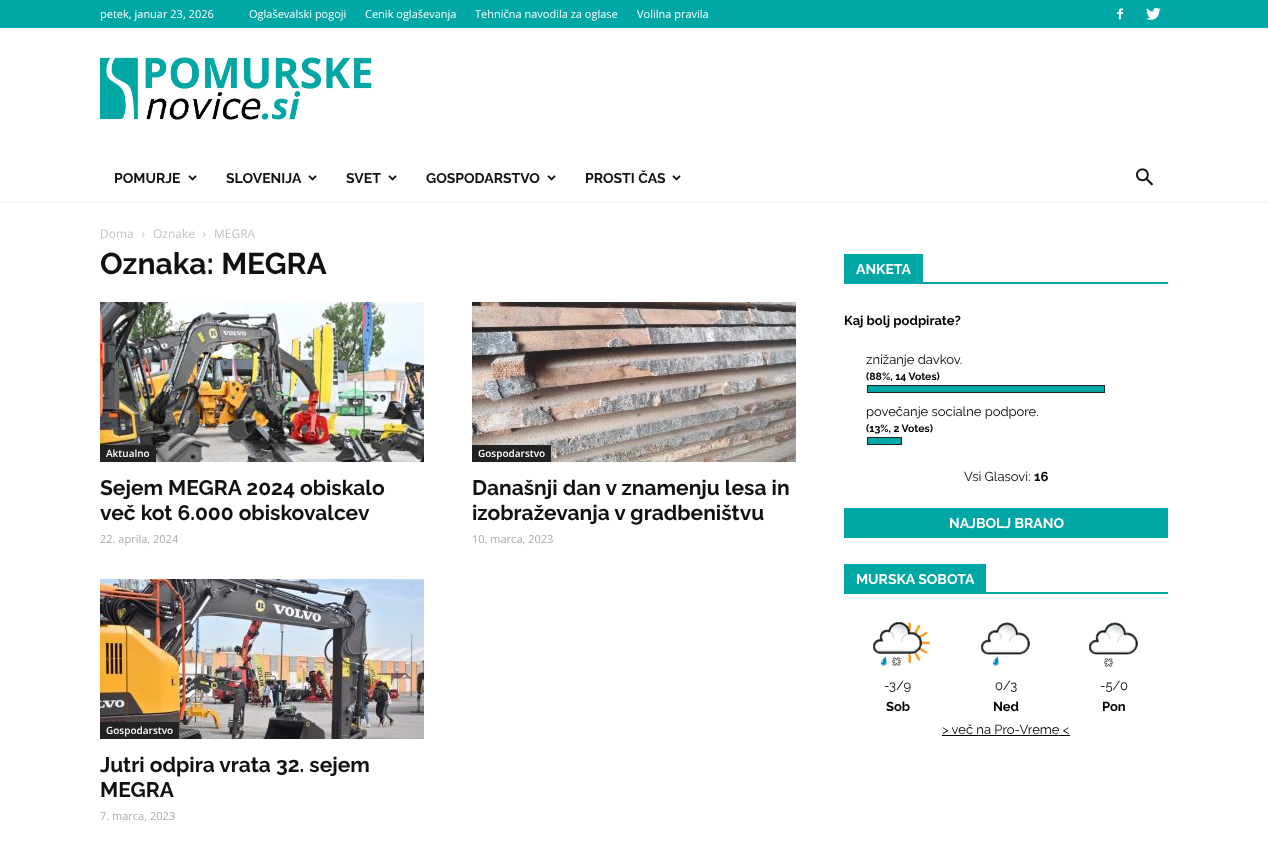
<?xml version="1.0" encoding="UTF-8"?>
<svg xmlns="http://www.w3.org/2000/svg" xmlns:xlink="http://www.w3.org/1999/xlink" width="1268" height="862">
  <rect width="100%" height="100%" fill="#ffffff" />
  <rect width="1268" height="28" fill="#00a7a4" />
  <image x="1117" y="8" width="6" height="12" xlink:href="image1.png" />
  <image x="1146" y="7" width="15" height="13" xlink:href="image2.png" />
  <image x="100" y="57" width="272" height="63" xlink:href="image3.png" />
  <rect y="202" width="1268" height="1" fill="#eeeeee" />
  <image x="188" y="175" width="9" height="6" xlink:href="image4.png" />
  <image x="308" y="175" width="9" height="6" xlink:href="image4.png" />
  <image x="388" y="175" width="9" height="6" xlink:href="image4.png" />
  <image x="547" y="175" width="9" height="6" xlink:href="image4.png" />
  <image x="672" y="175" width="9" height="6" xlink:href="image4.png" />
  <image x="1136" y="168" width="17" height="18" xlink:href="image5.png" />
  <image x="142" y="232" width="3" height="5" xlink:href="image6.png" />
  <image x="203" y="232" width="3" height="5" xlink:href="image6.png" />
  <image x="100" y="302" width="324" height="160" xlink:href="image7.png" />
  <rect x="100" y="445" width="56" height="17" fill="#222222" />
  <image x="472" y="302" width="324" height="160" xlink:href="image8.png" />
  <rect x="472" y="445" width="79" height="17" fill="#222222" />
  <image x="100" y="579" width="324" height="160" xlink:href="image9.png" />
  <rect x="100" y="722" width="79" height="17" fill="#222222" />
  <rect x="844" y="282" width="324" height="2" fill="#00a7a4" />
  <rect x="844" y="254" width="79" height="28" fill="#00a7a4" />
  <rect x="867.5" y="385.5" width="237" height="7" fill="#00a7a4" stroke="#222222" />
  <rect x="867.5" y="437.5" width="34" height="7" fill="#00a7a4" stroke="#222222" />
  <rect x="844" y="508" width="324" height="30" fill="#00a7a4" />
  <rect x="844" y="592" width="324" height="2" fill="#00a7a4" />
  <rect x="844" y="564" width="142" height="28" fill="#00a7a4" />
  <image x="873" y="622" width="57" height="44" xlink:href="image10.png" />
  <image x="981" y="622" width="49" height="44" xlink:href="image11.png" />
  <image x="1089" y="622" width="49" height="45" xlink:href="image12.png" />
  <rect x="942" y="735" width="128" height="1" fill="#000000" />
  <text x="100" y="18" style="font-family: Open Sans; font-size: 11px; fill: #ffffff">petek, januar 23, 2026</text>
  <text x="249" y="18" style="font-family: Open Sans; font-size: 11px; fill: #ffffff">Oglaševalski pogoji</text>
  <text x="365" y="18" style="font-family: Open Sans; font-size: 11px; fill: #ffffff">Cenik oglaševanja</text>
  <text x="475" y="18" style="font-family: Open Sans; font-size: 11px; fill: #ffffff">Tehnična navodila za oglase</text>
  <text x="637" y="18" style="font-family: Open Sans; font-size: 11px; fill: #ffffff">Volilna pravila</text>
  <text x="114" y="183" style="font-family: Raleway; font-size: 14px; font-weight: bold; fill: #111111">POMURJE</text>
  <text x="226" y="183" style="font-family: Raleway; font-size: 14px; font-weight: bold; fill: #111111">SLOVENIJA</text>
  <text x="346" y="183" style="font-family: Raleway; font-size: 14px; font-weight: bold; fill: #111111">SVET</text>
  <text x="426" y="183" style="font-family: Raleway; font-size: 14px; font-weight: bold; fill: #111111">GOSPODARSTVO</text>
  <text x="585" y="183" style="font-family: Raleway; font-size: 14px; font-weight: bold; fill: #111111">PROSTI ČAS</text>
  <text x="100" y="238" style="font-family: Open Sans; font-size: 12px; fill: #c3c3c3">Doma</text>
  <text x="153" y="238" style="font-family: Open Sans; font-size: 12px; fill: #c3c3c3">Oznake</text>
  <text x="214" y="238" style="font-family: Open Sans; font-size: 12px; fill: #c3c3c3">MEGRA</text>
  <text x="100" y="274" style="font-family: Raleway; font-size: 30px; font-weight: bold; fill: #111111">Oznaka: MEGRA</text>
  <text x="106" y="457" style="font-family: Open Sans; font-size: 10px; font-weight: 600; fill: #ffffff">Aktualno</text>
  <text x="100" y="495" style="font-family: Raleway; font-size: 21px; font-weight: bold; fill: #111111">Sejem MEGRA 2024 obiskalo</text>
  <text x="100" y="520" style="font-family: Raleway; font-size: 21px; font-weight: bold; fill: #111111">več kot 6.000 obiskovalcev</text>
  <text x="100" y="543" style="font-family: Open Sans; font-size: 11px; fill: #aaaaaa">22. aprila, 2024</text>
  <text x="478" y="457" style="font-family: Open Sans; font-size: 10px; font-weight: 600; fill: #ffffff">Gospodarstvo</text>
  <text x="472" y="495" style="font-family: Raleway; font-size: 21px; font-weight: bold; fill: #111111">Današnji dan v znamenju lesa in</text>
  <text x="472" y="520" style="font-family: Raleway; font-size: 21px; font-weight: bold; fill: #111111">izobraževanja v gradbeništvu</text>
  <text x="472" y="543" style="font-family: Open Sans; font-size: 11px; fill: #aaaaaa">10. marca, 2023</text>
  <text x="106" y="734" style="font-family: Open Sans; font-size: 10px; font-weight: 600; fill: #ffffff">Gospodarstvo</text>
  <text x="100" y="772" style="font-family: Raleway; font-size: 21px; font-weight: bold; fill: #111111">Jutri odpira vrata 32. sejem</text>
  <text x="100" y="797" style="font-family: Raleway; font-size: 21px; font-weight: bold; fill: #111111">MEGRA</text>
  <text x="100" y="820" style="font-family: Open Sans; font-size: 11px; fill: #aaaaaa">7. marca, 2023</text>
  <text x="856" y="274" style="font-family: Raleway; font-size: 14px; font-weight: bold; fill: #ffffff">ANKETA</text>
  <text x="844" y="325" style="font-family: Raleway; font-size: 13px; font-weight: bold; fill: #000000">Kaj bolj podpirate?</text>
  <text x="866" y="364" style="font-family: Raleway; font-size: 13px; fill: #000000">znižanje davkov.</text>
  <text x="866" y="380" style="font-family: Raleway; font-size: 10.5px; font-weight: bold; fill: #000000">(88%, 14 Votes)</text>
  <text x="866" y="416" style="font-family: Raleway; font-size: 13px; fill: #000000">povečanje socialne podpore.</text>
  <text x="866" y="432" style="font-family: Raleway; font-size: 10.5px; font-weight: bold; fill: #000000">(13%, 2 Votes)</text>
  <text x="964" y="481" style="font-family: Raleway; font-size: 13px; fill: #000000">Vsi Glasovi:</text>
  <text x="1034" y="481" style="font-family: Raleway; font-size: 13px; font-weight: bold; fill: #000000">16</text>
  <text x="949" y="528" style="font-family: Raleway; font-size: 14px; font-weight: bold; fill: #ffffff">NAJBOLJ BRANO</text>
  <text x="856" y="584" style="font-family: Raleway; font-size: 14px; font-weight: bold; fill: #ffffff">MURSKA SOBOTA</text>
  <text x="884" y="690" style="font-family: Raleway; font-size: 13px; fill: #000000">-3/9</text>
  <text x="886" y="711" style="font-family: Raleway; font-size: 13px; font-weight: bold; fill: #000000">Sob</text>
  <text x="995" y="690" style="font-family: Raleway; font-size: 13px; fill: #000000">0/3</text>
  <text x="993" y="711" style="font-family: Raleway; font-size: 13px; font-weight: bold; fill: #000000">Ned</text>
  <text x="1100" y="690" style="font-family: Raleway; font-size: 13px; fill: #000000">-5/0</text>
  <text x="1102" y="711" style="font-family: Raleway; font-size: 13px; font-weight: bold; fill: #000000">Pon</text>
  <text x="942" y="734" style="font-family: Raleway; font-size: 13px; fill: #000000">&gt; več na Pro-Vreme &lt;</text>
</svg>
